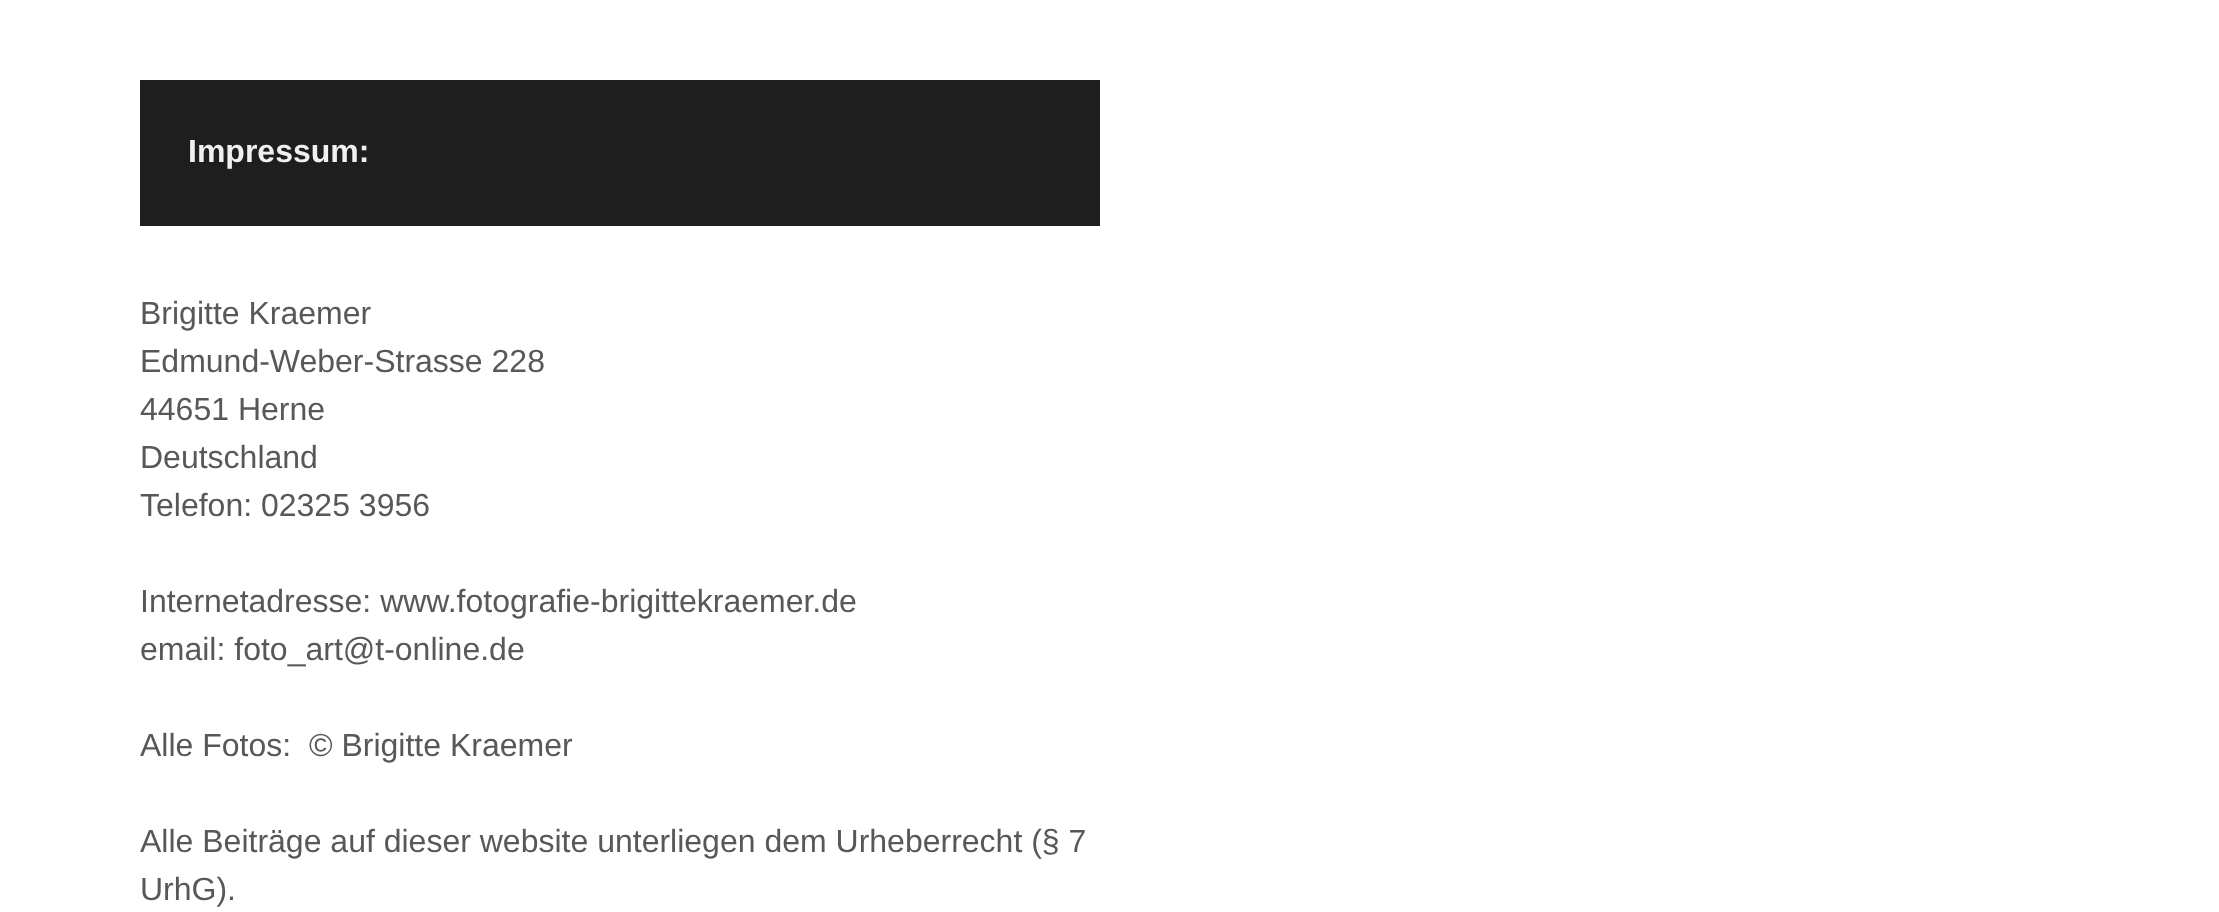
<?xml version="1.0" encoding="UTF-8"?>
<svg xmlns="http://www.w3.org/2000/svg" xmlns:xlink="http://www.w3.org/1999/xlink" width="2219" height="912">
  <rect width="100%" height="100%" fill="#ffffff" />
  <rect x="140" y="80" width="960" height="146" fill="#1e1e1e" />
  <text x="188" y="162" style="font-family: Liberation Sans; font-size: 32px; font-weight: bold; fill: #f0f0f0">Impressum:</text>
  <text x="140" y="324" style="font-family: Liberation Sans; font-size: 32px; fill: #585858">Brigitte Kraemer</text>
  <text x="140" y="372" style="font-family: Liberation Sans; font-size: 32px; fill: #585858">Edmund-Weber-Strasse 228</text>
  <text x="140" y="420" style="font-family: Liberation Sans; font-size: 32px; fill: #585858">44651 Herne</text>
  <text x="140" y="468" style="font-family: Liberation Sans; font-size: 32px; fill: #585858">Deutschland</text>
  <text x="140" y="516" style="font-family: Liberation Sans; font-size: 32px; fill: #585858">Telefon: 02325 3956</text>
  <text x="140" y="612" style="font-family: Liberation Sans; font-size: 32px; fill: #585858">Internetadresse: www.fotografie-brigittekraemer.de</text>
  <text x="140" y="660" style="font-family: Liberation Sans; font-size: 32px; fill: #585858">email: foto_art@t-online.de</text>
  <text x="140" y="756" style="font-family: Liberation Sans; font-size: 32px; fill: #585858" xml:space="preserve">Alle Fotos:  © Brigitte Kraemer</text>
  <text x="140" y="852" style="font-family: Liberation Sans; font-size: 32px; fill: #585858">Alle Beiträge auf dieser website unterliegen dem Urheberrecht (§ 7</text>
  <text x="140" y="900" style="font-family: Liberation Sans; font-size: 32px; fill: #585858">UrhG).</text>
</svg>
